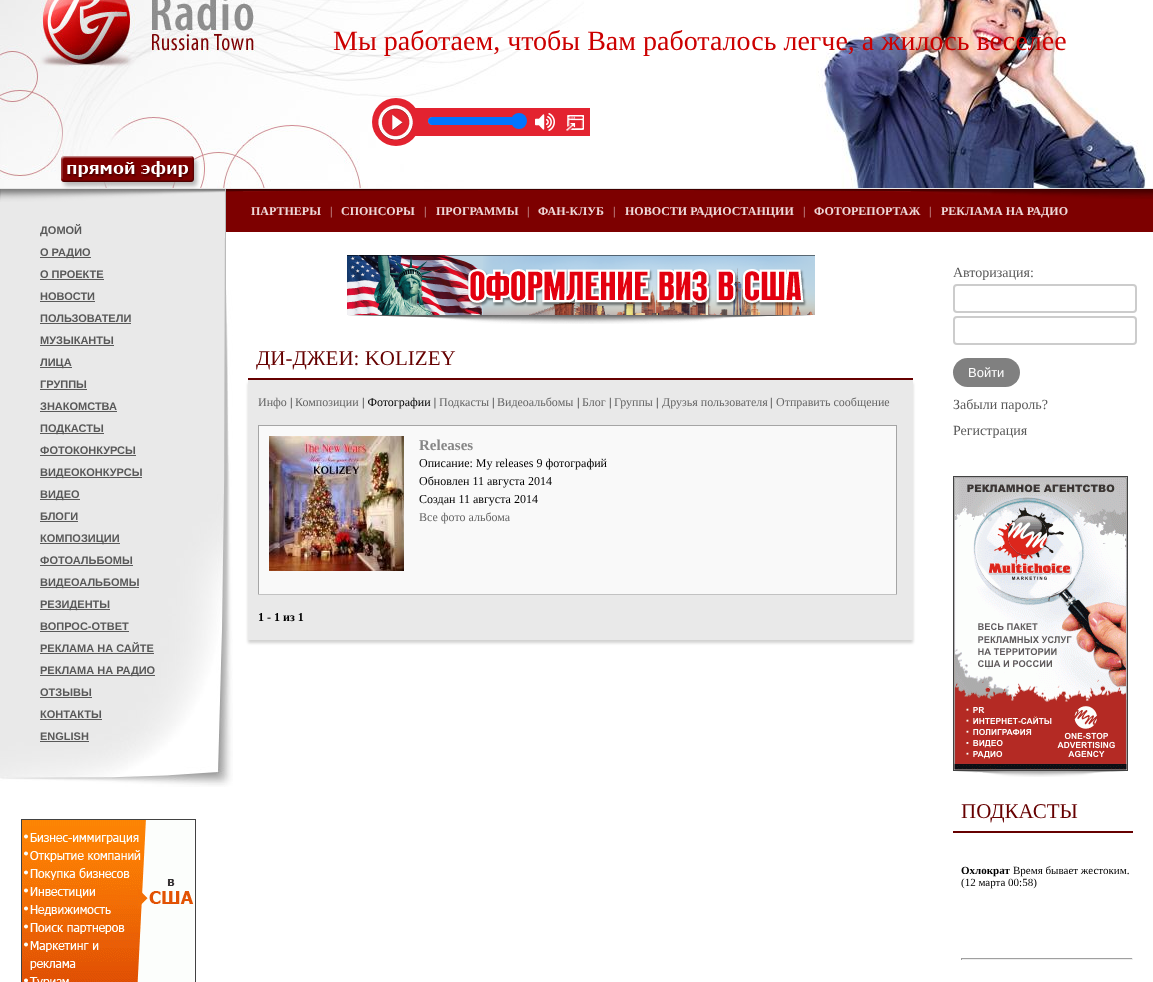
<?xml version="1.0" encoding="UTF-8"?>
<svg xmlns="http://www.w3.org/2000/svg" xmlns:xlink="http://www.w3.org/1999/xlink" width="1153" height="982">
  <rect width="100%" height="100%" fill="#ffffff" />
  <rect y="188" width="1153" height="1" fill="#e7e7e7" />
  <image x="0" y="0" width="584" height="188" xlink:href="image1.png" />
  <image x="816" y="0" width="330" height="188" xlink:href="image2.png" />
  <circle cx="396" cy="122" r="24" fill="#e32330" />
  <image x="378" y="105" width="35" height="35" xlink:href="image3.png" />
  <rect x="415" y="108" width="145" height="28" fill="#e32330" />
  <rect x="428.5" y="117.5" width="97" height="7" rx="3.5" fill="none" stroke="#b2b2b2" />
  <path d="M 432 117 h 87 v 8 h -87 c -2 0 -4 -2 -4 -4 c 0 -2 2 -4 4 -4 z" fill="#0075ff" />
  <circle cx="519" cy="121" r="8" fill="#0075ff" />
  <image x="535" y="113" width="20" height="18" xlink:href="image4.png" />
  <rect x="560" y="108" width="30" height="28" fill="#e32330" />
  <image x="566" y="115" width="18" height="16" xlink:href="image5.png" />
  <image x="61" y="156" width="139" height="33" xlink:href="image6.png" />
  <rect y="202" width="225" height="36" fill="#e9e9e9" />
  <image x="0" y="238" width="225" height="549" xlink:href="image7.png" />
  <rect x="225" y="189" width="1" height="101" fill="#bababa" />
  <image x="0" y="189" width="225" height="13" xlink:href="image8.png" />
  <rect x="40" y="257" width="51" height="1" fill="#595959" />
  <rect x="40" y="279" width="64" height="1" fill="#595959" />
  <rect x="40" y="301" width="55" height="1" fill="#595959" />
  <rect x="40" y="323" width="91" height="1" fill="#595959" />
  <rect x="40" y="345" width="74" height="1" fill="#595959" />
  <rect x="40" y="367" width="32" height="1" fill="#595959" />
  <rect x="40" y="389" width="47" height="1" fill="#595959" />
  <rect x="40" y="411" width="77" height="1" fill="#595959" />
  <rect x="40" y="433" width="64" height="1" fill="#595959" />
  <rect x="40" y="455" width="96" height="1" fill="#595959" />
  <rect x="40" y="477" width="102" height="1" fill="#595959" />
  <rect x="40" y="499" width="40" height="1" fill="#595959" />
  <rect x="40" y="521" width="38" height="1" fill="#595959" />
  <rect x="40" y="543" width="80" height="1" fill="#595959" />
  <rect x="40" y="565" width="93" height="1" fill="#595959" />
  <rect x="40" y="587" width="99" height="1" fill="#595959" />
  <rect x="40" y="609" width="70" height="1" fill="#595959" />
  <rect x="40" y="631" width="89" height="1" fill="#595959" />
  <rect x="40" y="653" width="114" height="1" fill="#595959" />
  <rect x="40" y="675" width="115" height="1" fill="#595959" />
  <rect x="40" y="697" width="52" height="1" fill="#595959" />
  <rect x="40" y="719" width="62" height="1" fill="#595959" />
  <rect x="40" y="741" width="49" height="1" fill="#595959" />
  <image x="225" y="290" width="8" height="497" xlink:href="image9.png" />
  <rect x="21.5" y="819.5" width="174" height="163" fill="none" stroke="#424242" />
  <image x="22" y="820" width="172" height="162" xlink:href="image10.png" />
  <rect x="226" y="190" width="927" height="42" fill="#7d0000" />
  <image x="226" y="190" width="252" height="2" xlink:href="image11.png" />
  <rect x="226" y="189" width="927" height="1" fill="#3f0000" />
  <image x="694" y="190" width="459" height="9" xlink:href="image12.png" />
  <image x="347" y="255" width="468" height="60" xlink:href="image13.png" />
  <image x="348" y="315" width="463" height="9" xlink:href="image14.png" />
  <rect x="248" y="378" width="665" height="2" fill="#660000" />
  <rect x="248" y="383" width="665" height="260" fill="#d2d2d1" filter="blur(1.5px)" />
  <rect x="248" y="380" width="665" height="260" fill="#e9e9e9" />
  <rect x="259" y="426" width="637" height="168" fill="#f9f9f9" />
  <rect x="258" y="425" width="639" height="1" fill="#a5a5a5" />
  <rect x="896" y="425" width="1" height="170" fill="#a5a5a5" />
  <rect x="258" y="425" width="1" height="170" fill="#a5a5a5" />
  <rect x="258" y="594" width="639" height="1" fill="#c2c2c2" />
  <image x="269" y="436" width="135" height="135" xlink:href="image15.png" />
  <rect x="954" y="285" width="182" height="27" rx="3" fill="none" stroke="#cccccc" stroke-width="2" />
  <rect x="954" y="317" width="182" height="27" rx="3" fill="none" stroke="#cccccc" stroke-width="2" />
  <rect x="953" y="358" width="67" height="29" rx="14.5" fill="#808080" />
  <rect x="953.5" y="476.5" width="174" height="294" fill="none" stroke="#424242" />
  <image x="954" y="477" width="173" height="293" xlink:href="image16.png" />
  <image x="955" y="771" width="170" height="6" xlink:href="image17.png" />
  <rect x="953" y="831" width="180" height="2" fill="#660000" />
  <rect x="961" y="958" width="172" height="1" fill="#9f9f9f" />
  <rect x="1132" y="958" width="1" height="2" fill="#eeeeee" />
  <rect x="961" y="959" width="172" height="1" fill="#eeeeee" />
  <rect x="961" y="958" width="1" height="2" fill="#9f9f9f" />
  <text x="333" y="50" style="font-family: Liberation Serif; font-size: 28px; fill: #cc0000">Мы работаем, чтобы Вам работалось легче, а жилось веселее</text>
  <text x="40" y="234" style="font-family: Liberation Sans; font-size: 11px; font-weight: bold; fill: #595959">ДОМОЙ</text>
  <text x="40" y="256" style="font-family: Liberation Sans; font-size: 11px; font-weight: bold; fill: #595959">О РАДИО</text>
  <text x="40" y="278" style="font-family: Liberation Sans; font-size: 11px; font-weight: bold; fill: #595959">О ПРОЕКТЕ</text>
  <text x="40" y="300" style="font-family: Liberation Sans; font-size: 11px; font-weight: bold; fill: #595959">НОВОСТИ</text>
  <text x="40" y="322" style="font-family: Liberation Sans; font-size: 11px; font-weight: bold; fill: #595959">ПОЛЬЗОВАТЕЛИ</text>
  <text x="40" y="344" style="font-family: Liberation Sans; font-size: 11px; font-weight: bold; fill: #595959">МУЗЫКАНТЫ</text>
  <text x="40" y="366" style="font-family: Liberation Sans; font-size: 11px; font-weight: bold; fill: #595959">ЛИЦА</text>
  <text x="40" y="388" style="font-family: Liberation Sans; font-size: 11px; font-weight: bold; fill: #595959">ГРУППЫ</text>
  <text x="40" y="410" style="font-family: Liberation Sans; font-size: 11px; font-weight: bold; fill: #595959">ЗНАКОМСТВА</text>
  <text x="40" y="432" style="font-family: Liberation Sans; font-size: 11px; font-weight: bold; fill: #595959">ПОДКАСТЫ</text>
  <text x="40" y="454" style="font-family: Liberation Sans; font-size: 11px; font-weight: bold; fill: #595959">ФОТОКОНКУРСЫ</text>
  <text x="40" y="476" style="font-family: Liberation Sans; font-size: 11px; font-weight: bold; fill: #595959">ВИДЕОКОНКУРСЫ</text>
  <text x="40" y="498" style="font-family: Liberation Sans; font-size: 11px; font-weight: bold; fill: #595959">ВИДЕО</text>
  <text x="40" y="520" style="font-family: Liberation Sans; font-size: 11px; font-weight: bold; fill: #595959">БЛОГИ</text>
  <text x="40" y="542" style="font-family: Liberation Sans; font-size: 11px; font-weight: bold; fill: #595959">КОМПОЗИЦИИ</text>
  <text x="40" y="564" style="font-family: Liberation Sans; font-size: 11px; font-weight: bold; fill: #595959">ФОТОАЛЬБОМЫ</text>
  <text x="40" y="586" style="font-family: Liberation Sans; font-size: 11px; font-weight: bold; fill: #595959">ВИДЕОАЛЬБОМЫ</text>
  <text x="40" y="608" style="font-family: Liberation Sans; font-size: 11px; font-weight: bold; fill: #595959">РЕЗИДЕНТЫ</text>
  <text x="40" y="630" style="font-family: Liberation Sans; font-size: 11px; font-weight: bold; fill: #595959">ВОПРОС-ОТВЕТ</text>
  <text x="40" y="652" style="font-family: Liberation Sans; font-size: 11px; font-weight: bold; fill: #595959">РЕКЛАМА НА САЙТЕ</text>
  <text x="40" y="674" style="font-family: Liberation Sans; font-size: 11px; font-weight: bold; fill: #595959">РЕКЛАМА НА РАДИО</text>
  <text x="40" y="696" style="font-family: Liberation Sans; font-size: 11px; font-weight: bold; fill: #595959">ОТЗЫВЫ</text>
  <text x="40" y="718" style="font-family: Liberation Sans; font-size: 11px; font-weight: bold; fill: #595959">КОНТАКТЫ</text>
  <text x="40" y="740" style="font-family: Liberation Sans; font-size: 11px; font-weight: bold; fill: #595959">ENGLISH</text>
  <text x="251" y="215" style="font-family: Liberation Serif; font-size: 12px; font-weight: bold; fill: #eed8d8">ПАРТНЕРЫ</text>
  <text x="330" y="215" style="font-family: Liberation Serif; font-size: 12px; fill: #dcbbbb">|</text>
  <text x="341" y="215" style="font-family: Liberation Serif; font-size: 12px; font-weight: bold; fill: #eed8d8">СПОНСОРЫ</text>
  <text x="424" y="215" style="font-family: Liberation Serif; font-size: 12px; fill: #dcbbbb">|</text>
  <text x="436" y="215" style="font-family: Liberation Serif; font-size: 12px; font-weight: bold; fill: #eed8d8">ПРОГРАММЫ</text>
  <text x="527" y="215" style="font-family: Liberation Serif; font-size: 12px; fill: #dcbbbb">|</text>
  <text x="538" y="215" style="font-family: Liberation Serif; font-size: 12px; font-weight: bold; fill: #eed8d8">ФАН-КЛУБ</text>
  <text x="613" y="215" style="font-family: Liberation Serif; font-size: 12px; fill: #dcbbbb">|</text>
  <text x="625" y="215" style="font-family: Liberation Serif; font-size: 12px; font-weight: bold; fill: #eed8d8">НОВОСТИ РАДИОСТАНЦИИ</text>
  <text x="803" y="215" style="font-family: Liberation Serif; font-size: 12px; fill: #dcbbbb">|</text>
  <text x="814" y="215" style="font-family: Liberation Serif; font-size: 12px; font-weight: bold; fill: #eed8d8">ФОТОРЕПОРТАЖ</text>
  <text x="929" y="215" style="font-family: Liberation Serif; font-size: 12px; fill: #dcbbbb">|</text>
  <text x="941" y="215" style="font-family: Liberation Serif; font-size: 12px; font-weight: bold; fill: #eed8d8">РЕКЛАМА НА РАДИО</text>
  <text x="256" y="365" style="font-family: Liberation Serif; font-size: 21px; fill: #660000">ДИ-ДЖЕИ: KOLIZEY</text>
  <text x="258" y="406" style="font-family: Liberation Serif; font-size: 12px; fill: #666666">Инфо</text>
  <text x="290" y="406" style="font-family: Liberation Serif; font-size: 12px; fill: #000000">|</text>
  <text x="295" y="406" style="font-family: Liberation Serif; font-size: 12px; fill: #666666">Композиции</text>
  <text x="362" y="406" style="font-family: Liberation Serif; font-size: 12px; fill: #000000">| Фотографии |</text>
  <text x="439" y="406" style="font-family: Liberation Serif; font-size: 12px; fill: #666666">Подкасты</text>
  <text x="492" y="406" style="font-family: Liberation Serif; font-size: 12px; fill: #000000">|</text>
  <text x="497" y="406" style="font-family: Liberation Serif; font-size: 12px; fill: #666666">Видеоальбомы</text>
  <text x="577" y="406" style="font-family: Liberation Serif; font-size: 12px; fill: #000000">|</text>
  <text x="582" y="406" style="font-family: Liberation Serif; font-size: 12px; fill: #666666">Блог</text>
  <text x="609" y="406" style="font-family: Liberation Serif; font-size: 12px; fill: #000000">|</text>
  <text x="614" y="406" style="font-family: Liberation Serif; font-size: 12px; fill: #666666">Группы</text>
  <text x="656" y="406" style="font-family: Liberation Serif; font-size: 12px; fill: #000000">|</text>
  <text x="662" y="406" style="font-family: Liberation Serif; font-size: 12px; fill: #666666">Друзья пользователя</text>
  <text x="770" y="406" style="font-family: Liberation Serif; font-size: 12px; fill: #000000">|</text>
  <text x="776" y="406" style="font-family: Liberation Serif; font-size: 12px; fill: #666666">Отправить сообщение</text>
  <text x="419" y="450" style="font-family: Liberation Serif; font-size: 15px; font-weight: bold; fill: #868686">Releases</text>
  <text x="419" y="467" style="font-family: Liberation Serif; font-size: 12px; fill: #000000">Описание: My releases 9 фотографий</text>
  <text x="419" y="485" style="font-family: Liberation Serif; font-size: 12px; fill: #000000">Обновлен 11 августа 2014</text>
  <text x="419" y="503" style="font-family: Liberation Serif; font-size: 12px; fill: #000000">Создан 11 августа 2014</text>
  <text x="419" y="521" style="font-family: Liberation Serif; font-size: 12px; fill: #666666">Все фото альбома</text>
  <text x="258" y="621" style="font-family: Liberation Serif; font-size: 12px; font-weight: bold; fill: #000000">1 - 1 из 1</text>
  <text x="953" y="277" style="font-family: Liberation Serif; font-size: 14px; fill: #595959">Авторизация:</text>
  <text x="968" y="377" style="font-family: Liberation Sans; font-size: 13px; fill: #ffffff">Войти</text>
  <text x="953" y="409" style="font-family: Liberation Serif; font-size: 14px; fill: #595959">Забыли пароль?</text>
  <text x="953" y="435" style="font-family: Liberation Serif; font-size: 14px; fill: #595959">Регистрация</text>
  <text x="961" y="818" style="font-family: Liberation Serif; font-size: 21px; fill: #660000">ПОДКАСТЫ</text>
  <text x="961" y="874" style="font-family: Liberation Serif; font-size: 11px; font-weight: bold; fill: #000000">Охлократ</text>
  <text x="1013" y="874" style="font-family: Liberation Serif; font-size: 11px; fill: #000000">Время бывает жестоким.</text>
  <text x="961" y="886" style="font-family: Liberation Serif; font-size: 11px; fill: #000000">(12 марта 00:58)</text>
</svg>
